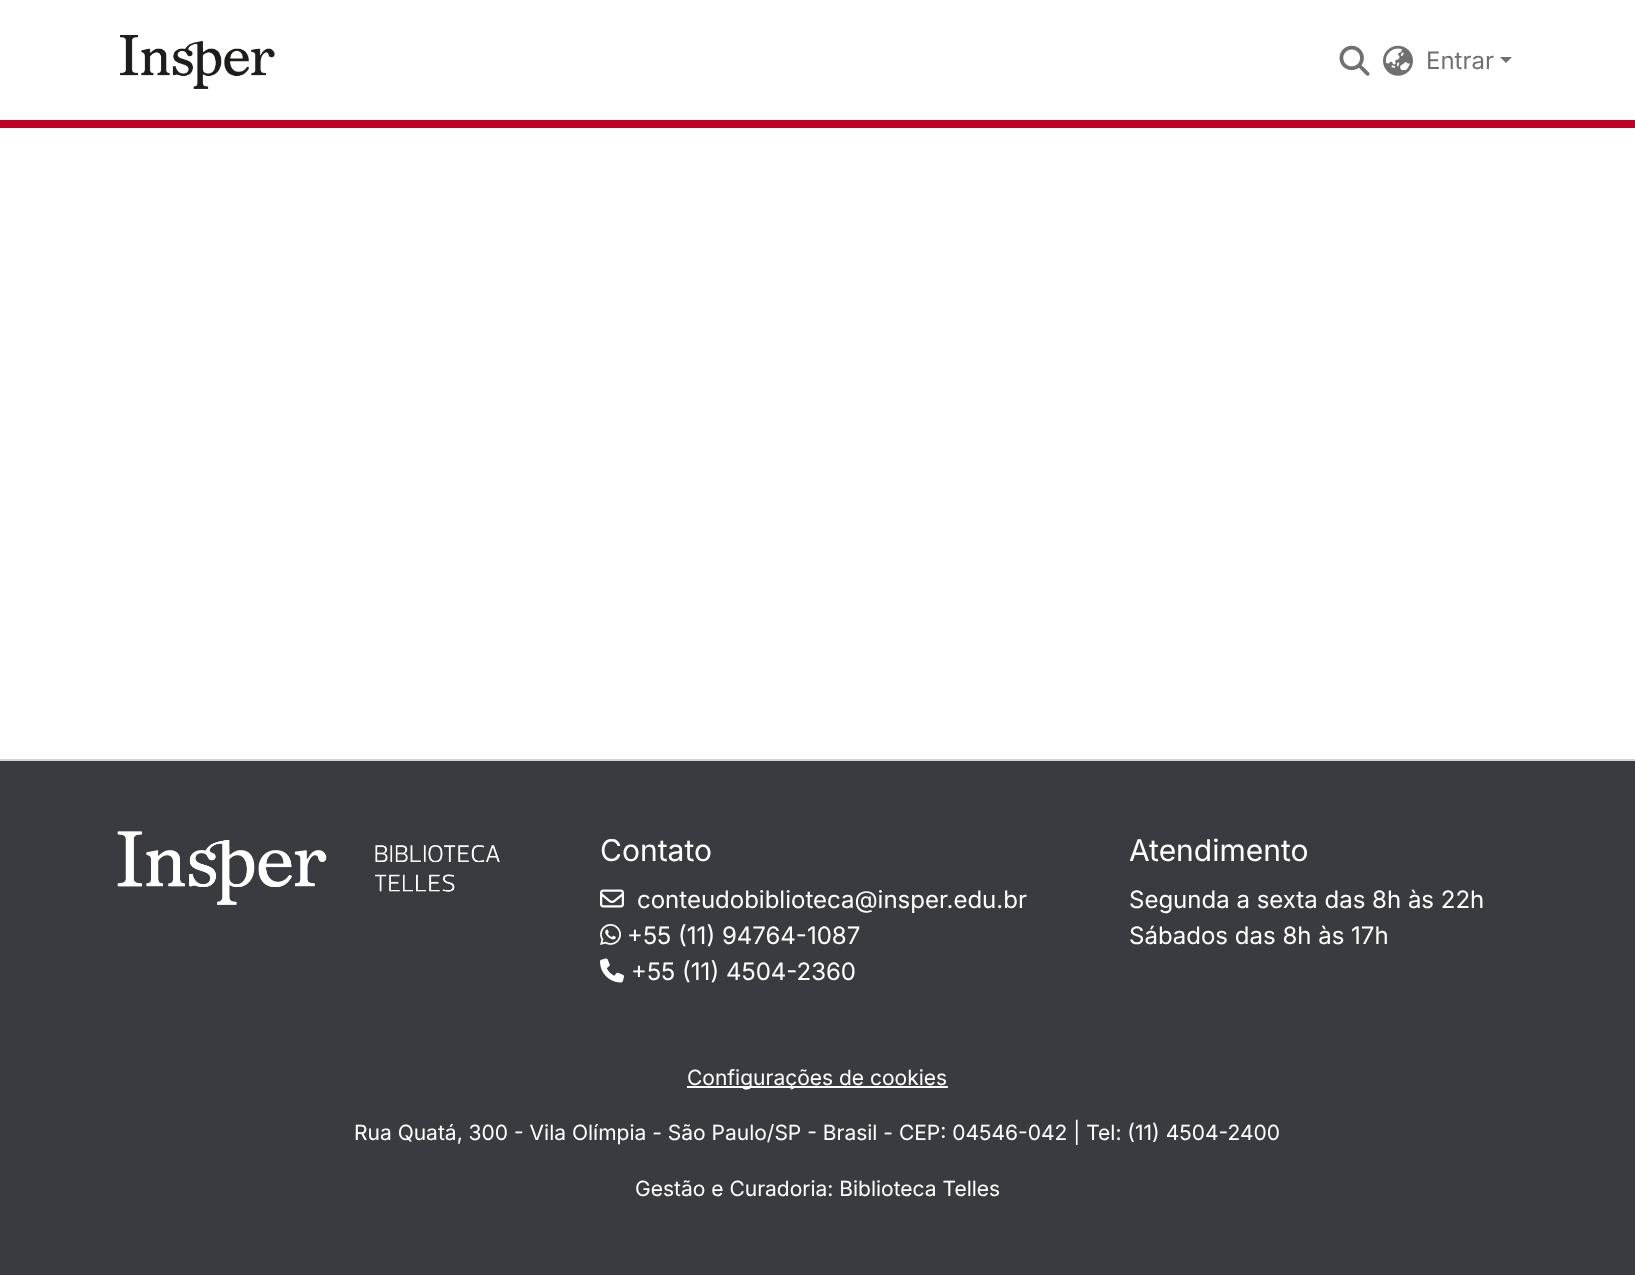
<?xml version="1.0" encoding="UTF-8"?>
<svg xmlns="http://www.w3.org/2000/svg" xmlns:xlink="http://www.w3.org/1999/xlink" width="1635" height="1275">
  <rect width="100%" height="100%" fill="#ffffff" />
  <rect y="120" width="1635" height="8" fill="#c00026" />
  <image x="120" y="35" width="155" height="54" xlink:href="image1.png" />
  <image x="1339" y="45" width="31" height="31" xlink:href="image2.png" />
  <image x="1383" y="45" width="30" height="31" xlink:href="image3.png" />
  <path d="M 1500 57 h 12 l -6 6 z" fill="#707070" />
  <rect y="761" width="1635" height="514" fill="#3a3a41" />
  <rect y="759" width="1635" height="2" fill="#ced4da" />
  <image x="117" y="831" width="383" height="74" xlink:href="image4.png" />
  <image x="600" y="889" width="24" height="19" xlink:href="image5.png" />
  <image x="600" y="924" width="21" height="21" xlink:href="image6.png" />
  <image x="600" y="958" width="24" height="25" xlink:href="image7.png" />
  <rect x="687" y="1086" width="261" height="2" fill="#ffffff" />
  <text x="1426" y="69" style="font-family: Inter; font-size: 24px; fill: #707070">Entrar</text>
  <text x="600" y="861" style="font-family: Inter; font-size: 30px; fill: #ffffff">Contato</text>
  <text x="637" y="908" style="font-family: Inter; font-size: 24px; fill: #ffffff">conteudobiblioteca@insper.edu.br</text>
  <text x="627" y="944" style="font-family: Inter; font-size: 24px; fill: #ffffff">+55 (11) 94764-1087</text>
  <text x="631" y="980" style="font-family: Inter; font-size: 24px; fill: #ffffff">+55 (11) 4504-2360</text>
  <text x="1129" y="861" style="font-family: Inter; font-size: 30px; fill: #ffffff">Atendimento</text>
  <text x="1129" y="908" style="font-family: Inter; font-size: 24px; fill: #ffffff">Segunda a sexta das 8h às 22h</text>
  <text x="1129" y="944" style="font-family: Inter; font-size: 24px; fill: #ffffff">Sábados das 8h às 17h</text>
  <text x="687" y="1085" style="font-family: Inter; font-size: 21px; fill: #ffffff">Configurações de cookies</text>
  <text x="354" y="1140" style="font-family: Inter; font-size: 21px; fill: #ffffff">Rua Quatá, 300 - Vila Olímpia - São Paulo/SP - Brasil - CEP: 04546-042 | Tel: (11) 4504-2400</text>
  <text x="635" y="1196" style="font-family: Inter; font-size: 21px; fill: #ffffff">Gestão e Curadoria: Biblioteca Telles</text>
</svg>
